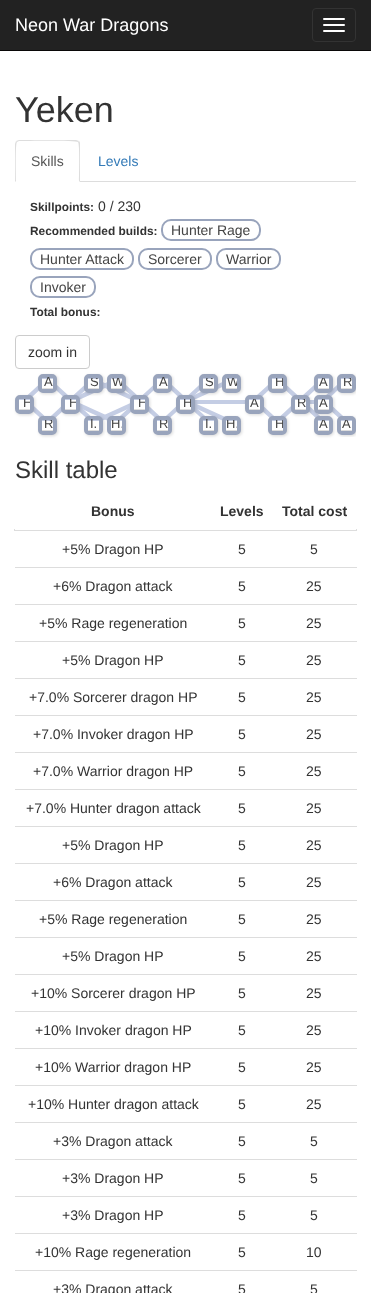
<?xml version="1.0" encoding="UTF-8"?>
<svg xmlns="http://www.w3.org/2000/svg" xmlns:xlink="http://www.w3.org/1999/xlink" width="371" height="1293">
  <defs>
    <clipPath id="clip1"><rect x="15" y="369" width="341" height="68" /></clipPath>
    <clipPath id="clip2"><rect x="88" y="378" width="11" height="11" rx="0.5" /></clipPath>
    <clipPath id="clip3"><rect x="111" y="378" width="11" height="11" rx="0.5" /></clipPath>
    <clipPath id="clip4"><rect x="203" y="378" width="11" height="11" rx="0.5" /></clipPath>
    <clipPath id="clip5"><rect x="226" y="378" width="11" height="11" rx="0.5" /></clipPath>
    <clipPath id="clip6"><rect x="272" y="378" width="11" height="11" rx="0.5" /></clipPath>
    <clipPath id="clip7"><rect x="318" y="378" width="11" height="11" rx="0.5" /></clipPath>
    <clipPath id="clip8"><rect x="341" y="378" width="11" height="11" rx="0.5" /></clipPath>
    <clipPath id="clip9"><rect x="19" y="399" width="11" height="11" rx="0.5" /></clipPath>
    <clipPath id="clip10"><rect x="65" y="399" width="11" height="11" rx="0.5" /></clipPath>
    <clipPath id="clip11"><rect x="134" y="399" width="11" height="11" rx="0.5" /></clipPath>
    <clipPath id="clip12"><rect x="180" y="399" width="11" height="11" rx="0.5" /></clipPath>
    <clipPath id="clip13"><rect x="249" y="399" width="11" height="11" rx="0.5" /></clipPath>
    <clipPath id="clip14"><rect x="295" y="399" width="11" height="11" rx="0.5" /></clipPath>
    <clipPath id="clip15"><rect x="318" y="399" width="11" height="11" rx="0.5" /></clipPath>
    <clipPath id="clip16"><rect x="42" y="420" width="11" height="11" rx="0.5" /></clipPath>
    <clipPath id="clip17"><rect x="111" y="420" width="11" height="11" rx="0.5" /></clipPath>
    <clipPath id="clip18"><rect x="157" y="420" width="11" height="11" rx="0.5" /></clipPath>
    <clipPath id="clip19"><rect x="226" y="420" width="11" height="11" rx="0.5" /></clipPath>
    <clipPath id="clip20"><rect x="272" y="420" width="11" height="11" rx="0.5" /></clipPath>
    <clipPath id="clip21"><rect x="318" y="420" width="11" height="11" rx="0.5" /></clipPath>
    <clipPath id="clip22"><rect x="341" y="420" width="11" height="11" rx="0.5" /></clipPath>
  </defs>
  <rect width="100%" height="100%" fill="#ffffff" />
  <rect width="371" height="50" fill="#222222" />
  <rect y="50" width="371" height="1" fill="#090808" />
  <rect x="312.5" y="8.5" width="43" height="33" rx="3.5" fill="none" stroke="#333333" />
  <rect x="323" y="18" width="22" height="2" rx="1" fill="#ffffff" />
  <rect x="323" y="24" width="22" height="2" rx="1" fill="#ffffff" />
  <rect x="323" y="30" width="22" height="2" rx="1" fill="#ffffff" />
  <rect x="80" y="181" width="276" height="1" fill="#dddddd" />
  <path d="M 19 140 l -3 1 l 1 1 l 2 -1 c 5 0 57 -1 59 1 l 1 -1 l -3 -1 z" fill="#dddddd" />
  <path d="M 80 182 v -38 c 0 -1 0 -2 -1 -3 l -1 1 c 2 2 1 34 1 39 z" fill="#dddddd" />
  <path d="M 15 182 l 1 -1 c 0 -5 -1 -37 1 -39 l -1 -1 l -1 3 z" fill="#dddddd" />
  <rect x="162" y="220" width="98" height="20" rx="9" fill="none" stroke="#99a4bc" stroke-width="2" />
  <rect x="31" y="249" width="102" height="20" rx="9" fill="none" stroke="#99a4bc" stroke-width="2" />
  <rect x="139" y="249" width="72" height="20" rx="9" fill="none" stroke="#99a4bc" stroke-width="2" />
  <rect x="217" y="249" width="63" height="20" rx="9" fill="none" stroke="#99a4bc" stroke-width="2" />
  <rect x="31" y="277" width="64" height="20" rx="9" fill="none" stroke="#99a4bc" stroke-width="2" />
  <rect x="15.5" y="335.5" width="74" height="33" rx="3.5" fill="none" stroke="#cccccc" />
  <path d="M 21 401 l 23 -21 l 3 3 l -23 21.5 z" fill="#c4cde4" />
  <path d="M 28.5 401 l 23 21.5 l -3 3 l -23 -21 z" fill="#c4cde4" />
  <path d="M 51.5 380 l 23 21 l -3 3.5 l -23 -21.5 z" fill="#c4cde4" />
  <rect x="16" y="396" width="19" height="19" rx="5" fill="#000000" fill-opacity="0.15" filter="blur(1.5px)" />
  <rect x="17" y="397" width="15" height="15" rx="3" fill="#ffffff" stroke="#99a4bc" stroke-width="4" />
  <rect x="39" y="375" width="19" height="19" rx="5" fill="#000000" fill-opacity="0.15" filter="blur(1.5px)" />
  <rect x="40" y="376" width="15" height="15" rx="3" fill="#ffffff" stroke="#99a4bc" stroke-width="4" />
  <path d="M 42.5 378 h 10 c 0.5 0 0.5 0 0.5 0.5 v 0.5 h -11 v -0.5 c 0 -0.5 0 -0.5 0.5 -0.5 z" fill="#c4cde4" />
  <path d="M 42 388 h 11 v 0.5 c 0 0.5 0 0.5 -0.5 0.5 h -10 c -0.5 0 -0.5 0 -0.5 -0.5 z" fill="#dddddd" />
  <path d="M 44 422.5 l 23 -21.5 l 3 3.5 l -23 21 z" fill="#c4cde4" />
  <path d="M 68 400 l 46 -21 l 2 4 l -46 21 z" fill="#c4cde4" />
  <path d="M 67 401 l 23 -21 l 3 3 l -23 21.5 z" fill="#c4cde4" />
  <path d="M 74.5 401 l 23 21.5 l -3 3 l -23 -21 z" fill="#c4cde4" />
  <path d="M 73 400 l 46 21 l -2 4 l -46 -21 z" fill="#c4cde4" />
  <path d="M 120.5 380 l 23 21 l -3 3.5 l -23 -21.5 z" fill="#c4cde4" />
  <path d="M 96 379 l 46 21 l -2 4 l -46 -21 z" fill="#c4cde4" />
  <rect x="108" y="375" width="19" height="19" rx="5" fill="#000000" fill-opacity="0.15" filter="blur(1.5px)" />
  <rect x="109" y="376" width="15" height="15" rx="3" fill="#ffffff" stroke="#99a4bc" stroke-width="4" />
  <rect x="39" y="417" width="19" height="19" rx="5" fill="#000000" fill-opacity="0.15" filter="blur(1.5px)" />
  <rect x="40" y="418" width="15" height="15" rx="3" fill="#ffffff" stroke="#99a4bc" stroke-width="4" />
  <rect x="62" y="396" width="19" height="19" rx="5" fill="#000000" fill-opacity="0.15" filter="blur(1.5px)" />
  <rect x="63" y="397" width="15" height="15" rx="3" fill="#ffffff" stroke="#99a4bc" stroke-width="4" />
  <rect x="85" y="375" width="19" height="19" rx="5" fill="#000000" fill-opacity="0.15" filter="blur(1.5px)" />
  <rect x="86" y="376" width="15" height="15" rx="3" fill="#ffffff" stroke="#99a4bc" stroke-width="4" />
  <path d="M 88.5 378 h 10 c 0.5 0 0.5 0 0.5 0.5 v 0.5 h -11 v -0.5 c 0 -0.5 0 -0.5 0.5 -0.5 z" fill="#c4cde4" />
  <path d="M 88 388 h 11 v 0.5 c 0 0.5 0 0.5 -0.5 0.5 h -10 c -0.5 0 -0.5 0 -0.5 -0.5 z" fill="#dddddd" />
  <path d="M 111.5 378 h 10 c 0.5 0 0.5 0 0.5 0.5 v 0.5 h -11 v -0.5 c 0 -0.5 0 -0.5 0.5 -0.5 z" fill="#c4cde4" />
  <path d="M 111 388 h 11 v 0.5 c 0 0.5 0 0.5 -0.5 0.5 h -10 c -0.5 0 -0.5 0 -0.5 -0.5 z" fill="#dddddd" />
  <path d="M 91 421 l 46 -21 l 2 4 l -46 21 z" fill="#c4cde4" />
  <path d="M 113 422.5 l 23 -21.5 l 3 3.5 l -23 21 z" fill="#c4cde4" />
  <path d="M 136 401 l 23 -21 l 2.5 3 l -23 21.5 z" fill="#c4cde4" />
  <path d="M 143.5 401 l 23 21.5 l -3 3 l -23 -21 z" fill="#c4cde4" />
  <path d="M 166.5 380 l 23 21 l -3 3.5 l -23 -21.5 z" fill="#c4cde4" />
  <rect x="85" y="417" width="19" height="19" rx="5" fill="#000000" fill-opacity="0.15" filter="blur(1.5px)" />
  <rect x="86" y="418" width="15" height="15" rx="3" fill="#ffffff" stroke="#99a4bc" stroke-width="4" />
  <rect x="108" y="417" width="19" height="19" rx="5" fill="#000000" fill-opacity="0.15" filter="blur(1.5px)" />
  <rect x="109" y="418" width="15" height="15" rx="3" fill="#ffffff" stroke="#99a4bc" stroke-width="4" />
  <rect x="131" y="396" width="19" height="19" rx="5" fill="#000000" fill-opacity="0.15" filter="blur(1.5px)" />
  <rect x="132" y="397" width="15" height="15" rx="3" fill="#ffffff" stroke="#99a4bc" stroke-width="4" />
  <rect x="154" y="375" width="19" height="19" rx="5" fill="#000000" fill-opacity="0.15" filter="blur(1.5px)" />
  <rect x="155" y="376" width="15" height="15" rx="3" fill="#ffffff" stroke="#99a4bc" stroke-width="4" />
  <path d="M 157.5 378 h 10 c 0.5 0 0.5 0 0.5 0.5 v 0.5 h -11 v -0.5 c 0 -0.5 0 -0.5 0.5 -0.5 z" fill="#c4cde4" />
  <path d="M 157 388 h 11 v 0.5 c 0 0.5 0 0.5 -0.5 0.5 h -10 c -0.5 0 -0.5 0 -0.5 -0.5 z" fill="#dddddd" />
  <path d="M 159 422.5 l 23 -21.5 l 2.5 3.5 l -23 21 z" fill="#c4cde4" />
  <path d="M 183 400 l 46 -21 l 2 4 l -46 21 z" fill="#c4cde4" />
  <rect x="223" y="375" width="19" height="19" rx="5" fill="#000000" fill-opacity="0.15" filter="blur(1.5px)" />
  <rect x="224" y="376" width="15" height="15" rx="3" fill="#ffffff" stroke="#99a4bc" stroke-width="4" />
  <path d="M 182 401 l 22.5 -21 l 3 3 l -23 21.5 z" fill="#c4cde4" />
  <path d="M 189 401 l 23 21.5 l -2.5 3 l -23 -21 z" fill="#c4cde4" />
  <path d="M 188 400 l 46 21 l -2 4 l -46 -21 z" fill="#c4cde4" />
  <rect x="195" y="400" width="50" height="4" fill="#c4cde4" />
  <rect x="154" y="417" width="19" height="19" rx="5" fill="#000000" fill-opacity="0.15" filter="blur(1.5px)" />
  <rect x="155" y="418" width="15" height="15" rx="3" fill="#ffffff" stroke="#99a4bc" stroke-width="4" />
  <rect x="177" y="396" width="19" height="19" rx="5" fill="#000000" fill-opacity="0.15" filter="blur(1.5px)" />
  <rect x="178" y="397" width="15" height="15" rx="3" fill="#ffffff" stroke="#99a4bc" stroke-width="4" />
  <rect x="200" y="375" width="19" height="19" rx="5" fill="#000000" fill-opacity="0.15" filter="blur(1.5px)" />
  <rect x="201" y="376" width="15" height="15" rx="3" fill="#ffffff" stroke="#99a4bc" stroke-width="4" />
  <path d="M 203.5 378 h 10 c 0.5 0 0.5 0 0.5 0.5 v 0.5 h -11 v -0.5 c 0 -0.5 0 -0.5 0.5 -0.5 z" fill="#c4cde4" />
  <path d="M 203 388 h 11 v 0.5 c 0 0.5 0 0.5 -0.5 0.5 h -10 c -0.5 0 -0.5 0 -0.5 -0.5 z" fill="#dddddd" />
  <path d="M 226.5 378 h 10 c 0.5 0 0.5 0 0.5 0.5 v 0.5 h -11 v -0.5 c 0 -0.5 0 -0.5 0.5 -0.5 z" fill="#c4cde4" />
  <path d="M 226 388 h 11 v 0.5 c 0 0.5 0 0.5 -0.5 0.5 h -10 c -0.5 0 -0.5 0 -0.5 -0.5 z" fill="#dddddd" />
  <path d="M 250.5 401 l 23 -21 l 3 3 l -23 21.5 z" fill="#c4cde4" />
  <path d="M 258 401 l 23 21.5 l -3 3 l -23 -21 z" fill="#c4cde4" />
  <path d="M 281 380 l 23 21 l -3 3.5 l -23 -21.5 z" fill="#c4cde4" />
  <rect x="200" y="417" width="19" height="19" rx="5" fill="#000000" fill-opacity="0.15" filter="blur(1.5px)" />
  <rect x="201" y="418" width="15" height="15" rx="3" fill="#ffffff" stroke="#99a4bc" stroke-width="4" />
  <rect x="223" y="417" width="19" height="19" rx="5" fill="#000000" fill-opacity="0.15" filter="blur(1.5px)" />
  <rect x="224" y="418" width="15" height="15" rx="3" fill="#ffffff" stroke="#99a4bc" stroke-width="4" />
  <rect x="246" y="396" width="19" height="19" rx="5" fill="#000000" fill-opacity="0.15" filter="blur(1.5px)" />
  <rect x="247" y="397" width="15" height="15" rx="3" fill="#ffffff" stroke="#99a4bc" stroke-width="4" />
  <rect x="269" y="375" width="19" height="19" rx="5" fill="#000000" fill-opacity="0.15" filter="blur(1.5px)" />
  <rect x="270" y="376" width="15" height="15" rx="3" fill="#ffffff" stroke="#99a4bc" stroke-width="4" />
  <path d="M 272.5 378 h 10 c 0.5 0 0.5 0 0.5 0.5 v 0.5 h -11 v -0.5 c 0 -0.5 0 -0.5 0.5 -0.5 z" fill="#c4cde4" />
  <path d="M 272 388 h 11 v 0.5 c 0 0.5 0 0.5 -0.5 0.5 h -10 c -0.5 0 -0.5 0 -0.5 -0.5 z" fill="#dddddd" />
  <path d="M 273.5 422.5 l 23 -21.5 l 3 3.5 l -23 21 z" fill="#c4cde4" />
  <path d="M 296.5 401 l 23 -21 l 3 3 l -23 21.5 z" fill="#c4cde4" />
  <rect x="310" y="400" width="4" height="4" fill="#c4cde4" />
  <path d="M 304 401 l 23 21.5 l -3 3 l -23 -21 z" fill="#c4cde4" />
  <path d="M 319.5 401 l 23 -21 l 3 3 l -23 21.5 z" fill="#c4cde4" />
  <rect x="269" y="417" width="19" height="19" rx="5" fill="#000000" fill-opacity="0.15" filter="blur(1.5px)" />
  <rect x="270" y="418" width="15" height="15" rx="3" fill="#ffffff" stroke="#99a4bc" stroke-width="4" />
  <rect x="292" y="396" width="19" height="19" rx="5" fill="#000000" fill-opacity="0.15" filter="blur(1.5px)" />
  <rect x="293" y="397" width="15" height="15" rx="3" fill="#ffffff" stroke="#99a4bc" stroke-width="4" />
  <rect x="315" y="375" width="19" height="19" rx="5" fill="#000000" fill-opacity="0.15" filter="blur(1.5px)" />
  <rect x="316" y="376" width="15" height="15" rx="3" fill="#ffffff" stroke="#99a4bc" stroke-width="4" />
  <path d="M 318.5 378 h 10 c 0.5 0 0.5 0 0.5 0.5 v 0.5 h -11 v -0.5 c 0 -0.5 0 -0.5 0.5 -0.5 z" fill="#c4cde4" />
  <path d="M 318 388 h 11 v 0.5 c 0 0.5 0 0.5 -0.5 0.5 h -10 c -0.5 0 -0.5 0 -0.5 -0.5 z" fill="#dddddd" />
  <path d="M 327 401 l 23 21.5 l -3 3 l -23 -21 z" fill="#c4cde4" />
  <rect x="315" y="396" width="19" height="19" rx="5" fill="#000000" fill-opacity="0.15" filter="blur(1.5px)" />
  <rect x="316" y="397" width="15" height="15" rx="3" fill="#ffffff" stroke="#99a4bc" stroke-width="4" />
  <g clip-path="url(#clip1)">
    <rect x="338" y="375" width="19" height="19" rx="5" fill="#000000" fill-opacity="0.15" filter="blur(1.5px)" />
  </g>
  <rect x="339" y="376" width="15" height="15" rx="3" fill="#ffffff" stroke="#99a4bc" stroke-width="4" />
  <path d="M 341.5 378 h 10 c 0.5 0 0.5 0 0.5 0.5 v 0.5 h -11 v -0.5 c 0 -0.5 0 -0.5 0.5 -0.5 z" fill="#c4cde4" />
  <path d="M 341 388 h 11 v 0.5 c 0 0.5 0 0.5 -0.5 0.5 h -10 c -0.5 0 -0.5 0 -0.5 -0.5 z" fill="#dddddd" />
  <path d="M 19.5 399 h 10 c 0.5 0 0.5 0 0.5 0.5 v 0.5 h -11 v -0.5 c 0 -0.5 0 -0.5 0.5 -0.5 z" fill="#c4cde4" />
  <path d="M 19 409 h 11 v 0.5 c 0 0.5 0 0.5 -0.5 0.5 h -10 c -0.5 0 -0.5 0 -0.5 -0.5 z" fill="#dddddd" />
  <path d="M 65.5 399 h 10 c 0.5 0 0.5 0 0.5 0.5 v 0.5 h -11 v -0.5 c 0 -0.5 0 -0.5 0.5 -0.5 z" fill="#c4cde4" />
  <path d="M 65 409 h 11 v 0.5 c 0 0.5 0 0.5 -0.5 0.5 h -10 c -0.5 0 -0.5 0 -0.5 -0.5 z" fill="#dddddd" />
  <path d="M 134.5 399 h 10 c 0.5 0 0.5 0 0.5 0.5 v 0.5 h -11 v -0.5 c 0 -0.5 0 -0.5 0.5 -0.5 z" fill="#c4cde4" />
  <path d="M 134 409 h 11 v 0.5 c 0 0.5 0 0.5 -0.5 0.5 h -10 c -0.5 0 -0.5 0 -0.5 -0.5 z" fill="#dddddd" />
  <path d="M 180.5 399 h 10 c 0.5 0 0.5 0 0.5 0.5 v 0.5 h -11 v -0.5 c 0 -0.5 0 -0.5 0.5 -0.5 z" fill="#c4cde4" />
  <path d="M 180 409 h 11 v 0.5 c 0 0.5 0 0.5 -0.5 0.5 h -10 c -0.5 0 -0.5 0 -0.5 -0.5 z" fill="#dddddd" />
  <path d="M 249.5 399 h 10 c 0.5 0 0.5 0 0.5 0.5 v 0.5 h -11 v -0.5 c 0 -0.5 0 -0.5 0.5 -0.5 z" fill="#c4cde4" />
  <path d="M 249 409 h 11 v 0.5 c 0 0.5 0 0.5 -0.5 0.5 h -10 c -0.5 0 -0.5 0 -0.5 -0.5 z" fill="#dddddd" />
  <path d="M 295.5 399 h 10 c 0.5 0 0.5 0 0.5 0.5 v 0.5 h -11 v -0.5 c 0 -0.5 0 -0.5 0.5 -0.5 z" fill="#c4cde4" />
  <path d="M 295 409 h 11 v 0.5 c 0 0.5 0 0.5 -0.5 0.5 h -10 c -0.5 0 -0.5 0 -0.5 -0.5 z" fill="#dddddd" />
  <path d="M 318.5 399 h 10 c 0.5 0 0.5 0 0.5 0.5 v 0.5 h -11 v -0.5 c 0 -0.5 0 -0.5 0.5 -0.5 z" fill="#c4cde4" />
  <path d="M 318 409 h 11 v 0.5 c 0 0.5 0 0.5 -0.5 0.5 h -10 c -0.5 0 -0.5 0 -0.5 -0.5 z" fill="#dddddd" />
  <path d="M 42.5 420 h 10 c 0.5 0 0.5 0 0.5 0.5 v 0.5 h -11 v -0.5 c 0 -0.5 0 -0.5 0.5 -0.5 z" fill="#c4cde4" />
  <path d="M 42 430 h 11 v 0.5 c 0 0.5 0 0.5 -0.5 0.5 h -10 c -0.5 0 -0.5 0 -0.5 -0.5 z" fill="#dddddd" />
  <path d="M 88.5 420 h 10 c 0.5 0 0.5 0 0.5 0.5 v 0.5 h -11 v -0.5 c 0 -0.5 0 -0.5 0.5 -0.5 z" fill="#c4cde4" />
  <path d="M 88 430 h 11 v 0.5 c 0 0.5 0 0.5 -0.5 0.5 h -10 c -0.5 0 -0.5 0 -0.5 -0.5 z" fill="#dddddd" />
  <path d="M 111.5 420 h 10 c 0.5 0 0.5 0 0.5 0.5 v 0.5 h -11 v -0.5 c 0 -0.5 0 -0.5 0.5 -0.5 z" fill="#c4cde4" />
  <path d="M 111 430 h 11 v 0.5 c 0 0.5 0 0.5 -0.5 0.5 h -10 c -0.5 0 -0.5 0 -0.5 -0.5 z" fill="#dddddd" />
  <path d="M 157.5 420 h 10 c 0.5 0 0.5 0 0.5 0.5 v 0.5 h -11 v -0.5 c 0 -0.5 0 -0.5 0.5 -0.5 z" fill="#c4cde4" />
  <path d="M 157 430 h 11 v 0.5 c 0 0.5 0 0.5 -0.5 0.5 h -10 c -0.5 0 -0.5 0 -0.5 -0.5 z" fill="#dddddd" />
  <path d="M 203.5 420 h 10 c 0.5 0 0.5 0 0.5 0.5 v 0.5 h -11 v -0.5 c 0 -0.5 0 -0.5 0.5 -0.5 z" fill="#c4cde4" />
  <path d="M 203 430 h 11 v 0.5 c 0 0.5 0 0.5 -0.5 0.5 h -10 c -0.5 0 -0.5 0 -0.5 -0.5 z" fill="#dddddd" />
  <path d="M 226.5 420 h 10 c 0.5 0 0.5 0 0.5 0.5 v 0.5 h -11 v -0.5 c 0 -0.5 0 -0.5 0.5 -0.5 z" fill="#c4cde4" />
  <path d="M 226 430 h 11 v 0.5 c 0 0.5 0 0.5 -0.5 0.5 h -10 c -0.5 0 -0.5 0 -0.5 -0.5 z" fill="#dddddd" />
  <path d="M 272.5 420 h 10 c 0.5 0 0.5 0 0.5 0.5 v 0.5 h -11 v -0.5 c 0 -0.5 0 -0.5 0.5 -0.5 z" fill="#c4cde4" />
  <path d="M 272 430 h 11 v 0.5 c 0 0.5 0 0.5 -0.5 0.5 h -10 c -0.5 0 -0.5 0 -0.5 -0.5 z" fill="#dddddd" />
  <rect x="315" y="417" width="19" height="19" rx="5" fill="#000000" fill-opacity="0.15" filter="blur(1.5px)" />
  <rect x="316" y="418" width="15" height="15" rx="3" fill="#ffffff" stroke="#99a4bc" stroke-width="4" />
  <path d="M 318.5 420 h 10 c 0.5 0 0.5 0 0.5 0.5 v 0.5 h -11 v -0.5 c 0 -0.5 0 -0.5 0.5 -0.5 z" fill="#c4cde4" />
  <path d="M 318 430 h 11 v 0.5 c 0 0.5 0 0.5 -0.5 0.5 h -10 c -0.5 0 -0.5 0 -0.5 -0.5 z" fill="#dddddd" />
  <g clip-path="url(#clip1)">
    <rect x="338" y="417" width="19" height="19" rx="5" fill="#000000" fill-opacity="0.15" filter="blur(1.5px)" />
  </g>
  <rect x="339" y="418" width="15" height="15" rx="3" fill="#ffffff" stroke="#99a4bc" stroke-width="4" />
  <path d="M 341.5 420 h 10 c 0.5 0 0.5 0 0.5 0.5 v 0.5 h -11 v -0.5 c 0 -0.5 0 -0.5 0.5 -0.5 z" fill="#c4cde4" />
  <path d="M 341 430 h 11 v 0.5 c 0 0.5 0 0.5 -0.5 0.5 h -10 c -0.5 0 -0.5 0 -0.5 -0.5 z" fill="#dddddd" />
  <rect x="272" y="529" width="85" height="2" fill="#dddddd" />
  <rect x="210" y="530" width="64" height="1" fill="#dddddd" />
  <rect x="14" y="529" width="198" height="2" fill="#dddddd" />
  <rect x="15" y="529" width="341" height="1" fill="#ffffff" />
  <rect x="15" y="567" width="342" height="1" fill="#dddddd" />
  <rect x="15" y="604" width="342" height="1" fill="#dddddd" />
  <rect x="15" y="641" width="342" height="1" fill="#dddddd" />
  <rect x="15" y="678" width="342" height="1" fill="#dddddd" />
  <rect x="15" y="715" width="342" height="1" fill="#dddddd" />
  <rect x="15" y="752" width="342" height="1" fill="#dddddd" />
  <rect x="15" y="789" width="342" height="1" fill="#dddddd" />
  <rect x="15" y="826" width="342" height="1" fill="#dddddd" />
  <rect x="15" y="863" width="342" height="1" fill="#dddddd" />
  <rect x="15" y="900" width="342" height="1" fill="#dddddd" />
  <rect x="15" y="937" width="342" height="1" fill="#dddddd" />
  <rect x="15" y="974" width="342" height="1" fill="#dddddd" />
  <rect x="15" y="1011" width="342" height="1" fill="#dddddd" />
  <rect x="15" y="1048" width="342" height="1" fill="#dddddd" />
  <rect x="15" y="1085" width="342" height="1" fill="#dddddd" />
  <rect x="15" y="1122" width="342" height="1" fill="#dddddd" />
  <rect x="15" y="1159" width="342" height="1" fill="#dddddd" />
  <rect x="15" y="1196" width="342" height="1" fill="#dddddd" />
  <rect x="15" y="1233" width="342" height="1" fill="#dddddd" />
  <rect x="15" y="1270" width="342" height="1" fill="#dddddd" />
  <text x="15" y="31" style="font-family: Liberation Sans; font-size: 18px; fill: #ffffff">Neon War Dragons</text>
  <text x="15" y="122" style="font-family: Liberation Sans; font-size: 36px; fill: #333333">Yeken</text>
  <text x="31" y="166" style="font-family: Liberation Sans; font-size: 14px; fill: #555555">Skills</text>
  <text x="98" y="166" style="font-family: Liberation Sans; font-size: 14px; fill: #337ab7">Levels</text>
  <text x="30" y="211" style="font-family: Liberation Sans; font-size: 11.9px; font-weight: bold; fill: #333333">Skillpoints:</text>
  <text x="98" y="211" style="font-family: Liberation Sans; font-size: 14px; fill: #333333">0 / 230</text>
  <text x="30" y="235" style="font-family: Liberation Sans; font-size: 11.9px; font-weight: bold; fill: #333333">Recommended builds:</text>
  <text x="171" y="235" style="font-family: Liberation Sans; font-size: 14px; fill: #444444">Hunter Rage</text>
  <text x="40" y="264" style="font-family: Liberation Sans; font-size: 14px; fill: #444444">Hunter Attack</text>
  <text x="148" y="264" style="font-family: Liberation Sans; font-size: 14px; fill: #444444">Sorcerer</text>
  <text x="226" y="264" style="font-family: Liberation Sans; font-size: 14px; fill: #444444">Warrior</text>
  <text x="40" y="292" style="font-family: Liberation Sans; font-size: 14px; fill: #444444">Invoker</text>
  <text x="30" y="316" style="font-family: Liberation Sans; font-size: 11.9px; font-weight: bold; fill: #333333">Total bonus:</text>
  <text x="28" y="357" style="font-family: Liberation Sans; font-size: 14px; fill: #333333">zoom in</text>
  <text x="44" y="386" style="font-family: Liberation Sans; font-size: 13px; fill: #444444">A</text>
  <g clip-path="url(#clip2)">
    <text x="90" y="386" word-spacing="-1" style="font-family: Liberation Sans; font-size: 13px; fill: #444444">S</text>
  </g>
  <g clip-path="url(#clip3)">
    <text x="112" y="386" word-spacing="-1" style="font-family: Liberation Sans; font-size: 13px; fill: #444444">W</text>
  </g>
  <text x="159" y="386" style="font-family: Liberation Sans; font-size: 13px; fill: #444444">A</text>
  <g clip-path="url(#clip4)">
    <text x="205" y="386" word-spacing="-1" style="font-family: Liberation Sans; font-size: 13px; fill: #444444">S</text>
  </g>
  <g clip-path="url(#clip5)">
    <text x="227" y="386" word-spacing="-1" style="font-family: Liberation Sans; font-size: 13px; fill: #444444">W</text>
  </g>
  <g clip-path="url(#clip6)">
    <text x="275" y="386" style="font-family: Liberation Sans; font-size: 13px; fill: #444444">H</text>
  </g>
  <g clip-path="url(#clip7)">
    <text x="319" y="386" style="font-family: Liberation Sans; font-size: 13px; fill: #444444">A</text>
  </g>
  <g clip-path="url(#clip8)">
    <text x="343" y="386" style="font-family: Liberation Sans; font-size: 13px; fill: #444444">R</text>
  </g>
  <g clip-path="url(#clip9)">
    <text x="23" y="407" style="font-family: Liberation Sans; font-size: 13px; fill: #444444">H</text>
  </g>
  <g clip-path="url(#clip10)">
    <text x="69" y="407" style="font-family: Liberation Sans; font-size: 13px; fill: #444444">H</text>
  </g>
  <g clip-path="url(#clip11)">
    <text x="138" y="407" style="font-family: Liberation Sans; font-size: 13px; fill: #444444">H</text>
  </g>
  <g clip-path="url(#clip12)">
    <text x="183" y="407" style="font-family: Liberation Sans; font-size: 13px; fill: #444444">H</text>
  </g>
  <g clip-path="url(#clip13)">
    <text x="250" y="407" style="font-family: Liberation Sans; font-size: 13px; fill: #444444">A</text>
  </g>
  <g clip-path="url(#clip14)">
    <text x="297" y="407" style="font-family: Liberation Sans; font-size: 13px; fill: #444444">R</text>
  </g>
  <g clip-path="url(#clip15)">
    <text x="319" y="407" style="font-family: Liberation Sans; font-size: 13px; fill: #444444">A</text>
  </g>
  <g clip-path="url(#clip16)">
    <text x="44" y="428" style="font-family: Liberation Sans; font-size: 13px; fill: #444444">R</text>
  </g>
  <text x="90" y="428" word-spacing="-1" style="font-family: Liberation Sans; font-size: 13px; fill: #444444">I.</text>
  <g clip-path="url(#clip17)">
    <text x="111" y="428" word-spacing="-1" style="font-family: Liberation Sans; font-size: 13px; fill: #444444">H.</text>
  </g>
  <g clip-path="url(#clip18)">
    <text x="159" y="428" style="font-family: Liberation Sans; font-size: 13px; fill: #444444">R</text>
  </g>
  <text x="205" y="428" word-spacing="-1" style="font-family: Liberation Sans; font-size: 13px; fill: #444444">I.</text>
  <g clip-path="url(#clip19)">
    <text x="226" y="428" word-spacing="-1" style="font-family: Liberation Sans; font-size: 13px; fill: #444444">H.</text>
  </g>
  <g clip-path="url(#clip20)">
    <text x="275" y="428" style="font-family: Liberation Sans; font-size: 13px; fill: #444444">H</text>
  </g>
  <g clip-path="url(#clip21)">
    <text x="319" y="428" style="font-family: Liberation Sans; font-size: 13px; fill: #444444">A</text>
  </g>
  <g clip-path="url(#clip22)">
    <text x="342" y="428" style="font-family: Liberation Sans; font-size: 13px; fill: #444444">A</text>
  </g>
  <text x="15" y="478" style="font-family: Liberation Sans; font-size: 24px; fill: #333333">Skill table</text>
  <text x="91" y="516" style="font-family: Liberation Sans; font-size: 14px; font-weight: bold; fill: #333333">Bonus</text>
  <text x="220" y="516" style="font-family: Liberation Sans; font-size: 14px; font-weight: bold; fill: #333333">Levels</text>
  <text x="282" y="516" style="font-family: Liberation Sans; font-size: 14px; font-weight: bold; fill: #333333">Total cost</text>
  <text x="62" y="554" style="font-family: Liberation Sans; font-size: 14px; fill: #333333">+5% Dragon HP</text>
  <text x="238" y="554" style="font-family: Liberation Sans; font-size: 14px; fill: #333333">5</text>
  <text x="310" y="554" style="font-family: Liberation Sans; font-size: 14px; fill: #333333">5</text>
  <text x="53" y="591" style="font-family: Liberation Sans; font-size: 14px; fill: #333333">+6% Dragon attack</text>
  <text x="238" y="591" style="font-family: Liberation Sans; font-size: 14px; fill: #333333">5</text>
  <text x="306" y="591" style="font-family: Liberation Sans; font-size: 14px; fill: #333333">25</text>
  <text x="39" y="628" style="font-family: Liberation Sans; font-size: 14px; fill: #333333">+5% Rage regeneration</text>
  <text x="238" y="628" style="font-family: Liberation Sans; font-size: 14px; fill: #333333">5</text>
  <text x="306" y="628" style="font-family: Liberation Sans; font-size: 14px; fill: #333333">25</text>
  <text x="62" y="665" style="font-family: Liberation Sans; font-size: 14px; fill: #333333">+5% Dragon HP</text>
  <text x="238" y="665" style="font-family: Liberation Sans; font-size: 14px; fill: #333333">5</text>
  <text x="306" y="665" style="font-family: Liberation Sans; font-size: 14px; fill: #333333">25</text>
  <text x="29" y="702" style="font-family: Liberation Sans; font-size: 14px; fill: #333333">+7.0% Sorcerer dragon HP</text>
  <text x="238" y="702" style="font-family: Liberation Sans; font-size: 14px; fill: #333333">5</text>
  <text x="306" y="702" style="font-family: Liberation Sans; font-size: 14px; fill: #333333">25</text>
  <text x="33" y="739" style="font-family: Liberation Sans; font-size: 14px; fill: #333333">+7.0% Invoker dragon HP</text>
  <text x="238" y="739" style="font-family: Liberation Sans; font-size: 14px; fill: #333333">5</text>
  <text x="306" y="739" style="font-family: Liberation Sans; font-size: 14px; fill: #333333">25</text>
  <text x="33" y="776" style="font-family: Liberation Sans; font-size: 14px; fill: #333333">+7.0% Warrior dragon HP</text>
  <text x="238" y="776" style="font-family: Liberation Sans; font-size: 14px; fill: #333333">5</text>
  <text x="306" y="776" style="font-family: Liberation Sans; font-size: 14px; fill: #333333">25</text>
  <text x="26" y="813" style="font-family: Liberation Sans; font-size: 14px; fill: #333333">+7.0% Hunter dragon attack</text>
  <text x="238" y="813" style="font-family: Liberation Sans; font-size: 14px; fill: #333333">5</text>
  <text x="306" y="813" style="font-family: Liberation Sans; font-size: 14px; fill: #333333">25</text>
  <text x="62" y="850" style="font-family: Liberation Sans; font-size: 14px; fill: #333333">+5% Dragon HP</text>
  <text x="238" y="850" style="font-family: Liberation Sans; font-size: 14px; fill: #333333">5</text>
  <text x="306" y="850" style="font-family: Liberation Sans; font-size: 14px; fill: #333333">25</text>
  <text x="53" y="887" style="font-family: Liberation Sans; font-size: 14px; fill: #333333">+6% Dragon attack</text>
  <text x="238" y="887" style="font-family: Liberation Sans; font-size: 14px; fill: #333333">5</text>
  <text x="306" y="887" style="font-family: Liberation Sans; font-size: 14px; fill: #333333">25</text>
  <text x="39" y="924" style="font-family: Liberation Sans; font-size: 14px; fill: #333333">+5% Rage regeneration</text>
  <text x="238" y="924" style="font-family: Liberation Sans; font-size: 14px; fill: #333333">5</text>
  <text x="306" y="924" style="font-family: Liberation Sans; font-size: 14px; fill: #333333">25</text>
  <text x="62" y="961" style="font-family: Liberation Sans; font-size: 14px; fill: #333333">+5% Dragon HP</text>
  <text x="238" y="961" style="font-family: Liberation Sans; font-size: 14px; fill: #333333">5</text>
  <text x="306" y="961" style="font-family: Liberation Sans; font-size: 14px; fill: #333333">25</text>
  <text x="31" y="998" style="font-family: Liberation Sans; font-size: 14px; fill: #333333">+10% Sorcerer dragon HP</text>
  <text x="238" y="998" style="font-family: Liberation Sans; font-size: 14px; fill: #333333">5</text>
  <text x="306" y="998" style="font-family: Liberation Sans; font-size: 14px; fill: #333333">25</text>
  <text x="35" y="1035" style="font-family: Liberation Sans; font-size: 14px; fill: #333333">+10% Invoker dragon HP</text>
  <text x="238" y="1035" style="font-family: Liberation Sans; font-size: 14px; fill: #333333">5</text>
  <text x="306" y="1035" style="font-family: Liberation Sans; font-size: 14px; fill: #333333">25</text>
  <text x="35" y="1072" style="font-family: Liberation Sans; font-size: 14px; fill: #333333">+10% Warrior dragon HP</text>
  <text x="238" y="1072" style="font-family: Liberation Sans; font-size: 14px; fill: #333333">5</text>
  <text x="306" y="1072" style="font-family: Liberation Sans; font-size: 14px; fill: #333333">25</text>
  <text x="28" y="1109" style="font-family: Liberation Sans; font-size: 14px; fill: #333333">+10% Hunter dragon attack</text>
  <text x="238" y="1109" style="font-family: Liberation Sans; font-size: 14px; fill: #333333">5</text>
  <text x="306" y="1109" style="font-family: Liberation Sans; font-size: 14px; fill: #333333">25</text>
  <text x="53" y="1146" style="font-family: Liberation Sans; font-size: 14px; fill: #333333">+3% Dragon attack</text>
  <text x="238" y="1146" style="font-family: Liberation Sans; font-size: 14px; fill: #333333">5</text>
  <text x="310" y="1146" style="font-family: Liberation Sans; font-size: 14px; fill: #333333">5</text>
  <text x="62" y="1183" style="font-family: Liberation Sans; font-size: 14px; fill: #333333">+3% Dragon HP</text>
  <text x="238" y="1183" style="font-family: Liberation Sans; font-size: 14px; fill: #333333">5</text>
  <text x="310" y="1183" style="font-family: Liberation Sans; font-size: 14px; fill: #333333">5</text>
  <text x="62" y="1220" style="font-family: Liberation Sans; font-size: 14px; fill: #333333">+3% Dragon HP</text>
  <text x="238" y="1220" style="font-family: Liberation Sans; font-size: 14px; fill: #333333">5</text>
  <text x="310" y="1220" style="font-family: Liberation Sans; font-size: 14px; fill: #333333">5</text>
  <text x="35" y="1257" style="font-family: Liberation Sans; font-size: 14px; fill: #333333">+10% Rage regeneration</text>
  <text x="238" y="1257" style="font-family: Liberation Sans; font-size: 14px; fill: #333333">5</text>
  <text x="306" y="1257" style="font-family: Liberation Sans; font-size: 14px; fill: #333333">10</text>
  <text x="53" y="1294" style="font-family: Liberation Sans; font-size: 14px; fill: #333333">+3% Dragon attack</text>
  <text x="238" y="1294" style="font-family: Liberation Sans; font-size: 14px; fill: #333333">5</text>
  <text x="310" y="1294" style="font-family: Liberation Sans; font-size: 14px; fill: #333333">5</text>
</svg>
